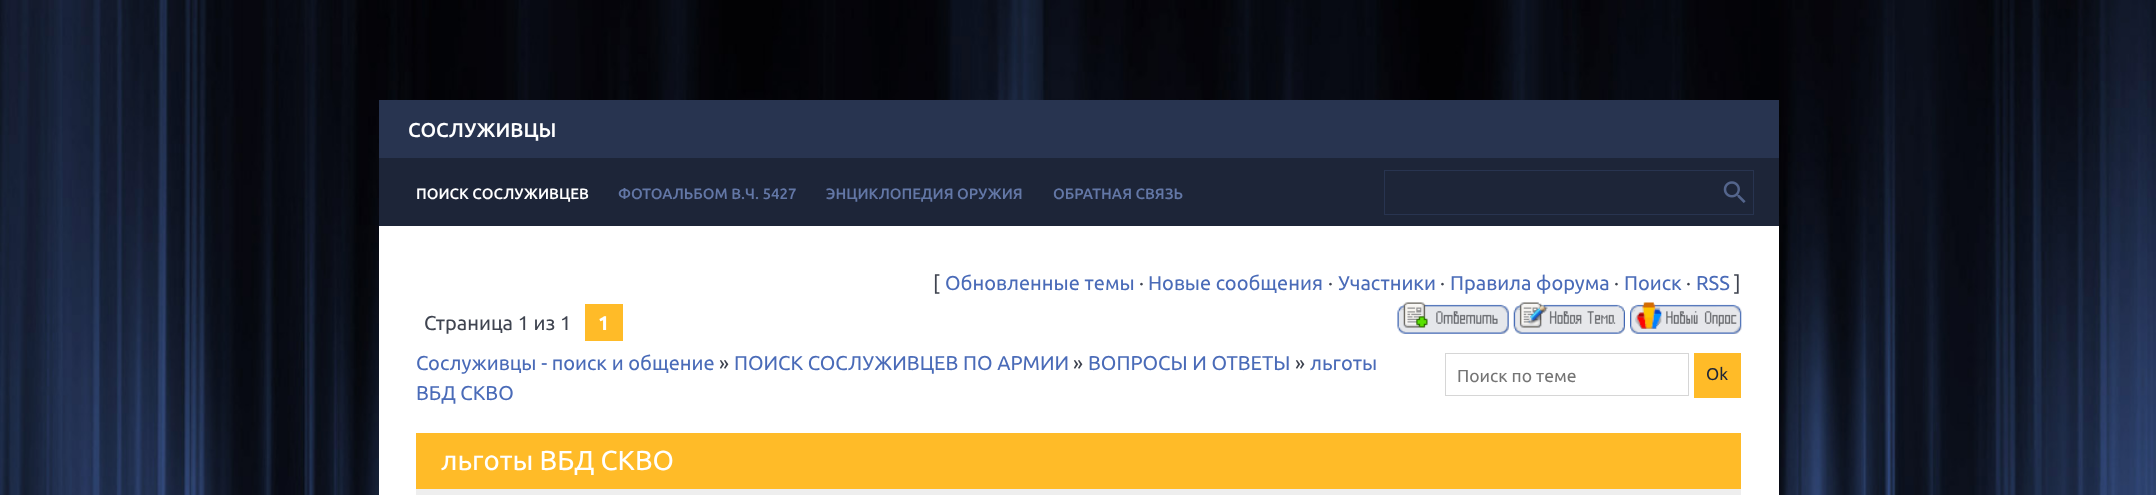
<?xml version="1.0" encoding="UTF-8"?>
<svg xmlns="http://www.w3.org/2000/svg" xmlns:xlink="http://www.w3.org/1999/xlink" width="2156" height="495">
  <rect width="100%" height="100%" fill="#ffffff" />
  <image x="0" y="0" width="2156" height="495" xlink:href="image1.png" />
  <rect x="379" y="158" width="1400" height="68" fill="#1d2538" />
  <rect x="379" y="100" width="1400" height="58" fill="#283450" />
  <rect x="1384.5" y="170.5" width="369" height="44" fill="none" stroke="#283450" />
  <image x="1723" y="181" width="23" height="22" xlink:href="image2.png" />
  <rect x="379" y="226" width="1400" height="269" fill="#ffffff" />
  <rect x="585" y="304" width="38" height="37" fill="#ffbb28" />
  <image x="1397" y="302" width="112" height="32" xlink:href="image3.png" />
  <image x="1513" y="302" width="112" height="32" xlink:href="image4.png" />
  <image x="1630" y="302" width="112" height="32" xlink:href="image5.png" />
  <rect x="1445.5" y="353.5" width="243" height="42" fill="none" stroke="#d6d6d6" />
  <rect x="1694" y="353" width="47" height="45" fill="#ffbb28" />
  <rect x="416" y="433" width="1325" height="56" fill="#ffbb28" />
  <rect x="416" y="489" width="1325" height="6" fill="#eeeeee" />
  <text x="408" y="137" style="font-family: Ubuntu; font-size: 20px; font-weight: 500; fill: #ffffff">СОСЛУЖИВЦЫ</text>
  <text x="416" y="199" style="font-family: Ubuntu; font-size: 15px; font-weight: 500; fill: #ffffff">ПОИСК СОСЛУЖИВЦЕВ</text>
  <text x="618" y="199" style="font-family: Ubuntu; font-size: 15px; font-weight: 500; fill: #6377a6">ФОТОАЛЬБОМ В.Ч. 5427</text>
  <text x="826" y="199" style="font-family: Ubuntu; font-size: 15px; font-weight: 500; fill: #6377a6">ЭНЦИКЛОПЕДИЯ ОРУЖИЯ</text>
  <text x="1053" y="199" style="font-family: Ubuntu; font-size: 15px; font-weight: 500; fill: #6377a6">ОБРАТНАЯ СВЯЗЬ</text>
  <text x="933" y="290" style="font-family: Ubuntu; font-size: 20px; fill: #3f4450">[</text>
  <text x="945" y="290" style="font-family: Ubuntu; font-size: 20px; fill: #4a6bb8">Обновленные темы</text>
  <text x="1139" y="290" style="font-family: Ubuntu; font-size: 20px; fill: #3f4450">·</text>
  <text x="1148" y="290" style="font-family: Ubuntu; font-size: 20px; fill: #4a6bb8">Новые сообщения</text>
  <text x="1328" y="290" style="font-family: Ubuntu; font-size: 20px; fill: #3f4450">·</text>
  <text x="1338" y="290" style="font-family: Ubuntu; font-size: 20px; fill: #4a6bb8">Участники</text>
  <text x="1440" y="290" style="font-family: Ubuntu; font-size: 20px; fill: #3f4450">·</text>
  <text x="1450" y="290" style="font-family: Ubuntu; font-size: 20px; fill: #4a6bb8">Правила форума</text>
  <text x="1614" y="290" style="font-family: Ubuntu; font-size: 20px; fill: #3f4450">·</text>
  <text x="1624" y="290" style="font-family: Ubuntu; font-size: 20px; fill: #4a6bb8">Поиск</text>
  <text x="1686" y="290" style="font-family: Ubuntu; font-size: 20px; fill: #3f4450">·</text>
  <text x="1696" y="290" style="font-family: Ubuntu; font-size: 20px; fill: #4a6bb8">RSS</text>
  <text x="1734" y="290" style="font-family: Ubuntu; font-size: 20px; fill: #3f4450">]</text>
  <text x="424" y="330" style="font-family: Ubuntu; font-size: 20px; fill: #3f4450">Страница 1 из 1</text>
  <text x="598" y="330" style="font-family: Ubuntu; font-size: 20px; font-weight: bold; fill: #ffffff">1</text>
  <text x="416" y="370" style="font-family: Ubuntu; font-size: 20px; fill: #4a6bb8">Сослуживцы - поиск и общение</text>
  <text x="719" y="370" style="font-family: Ubuntu; font-size: 20px; fill: #3f4450">»</text>
  <text x="734" y="370" style="font-family: Ubuntu; font-size: 20px; fill: #4a6bb8">ПОИСК СОСЛУЖИВЦЕВ ПО АРМИИ</text>
  <text x="1073" y="370" style="font-family: Ubuntu; font-size: 20px; fill: #3f4450">»</text>
  <text x="1088" y="370" style="font-family: Ubuntu; font-size: 20px; fill: #4a6bb8">ВОПРОСЫ И ОТВЕТЫ</text>
  <text x="1295" y="370" style="font-family: Ubuntu; font-size: 20px; fill: #3f4450">»</text>
  <text x="1310" y="370" style="font-family: Ubuntu; font-size: 20px; fill: #4a6bb8">льготы</text>
  <text x="416" y="400" style="font-family: Ubuntu; font-size: 20px; fill: #4a6bb8">ВБД СКВО</text>
  <text x="1457" y="382" style="font-family: Ubuntu; font-size: 17.5px; fill: #757575">Поиск по теме</text>
  <text x="1706" y="380" style="font-family: Ubuntu; font-size: 17px; fill: #1d2538">Ok</text>
  <text x="441" y="470" style="font-family: Ubuntu; font-size: 27.5px; fill: #ffffff">льготы ВБД СКВО</text>
</svg>
